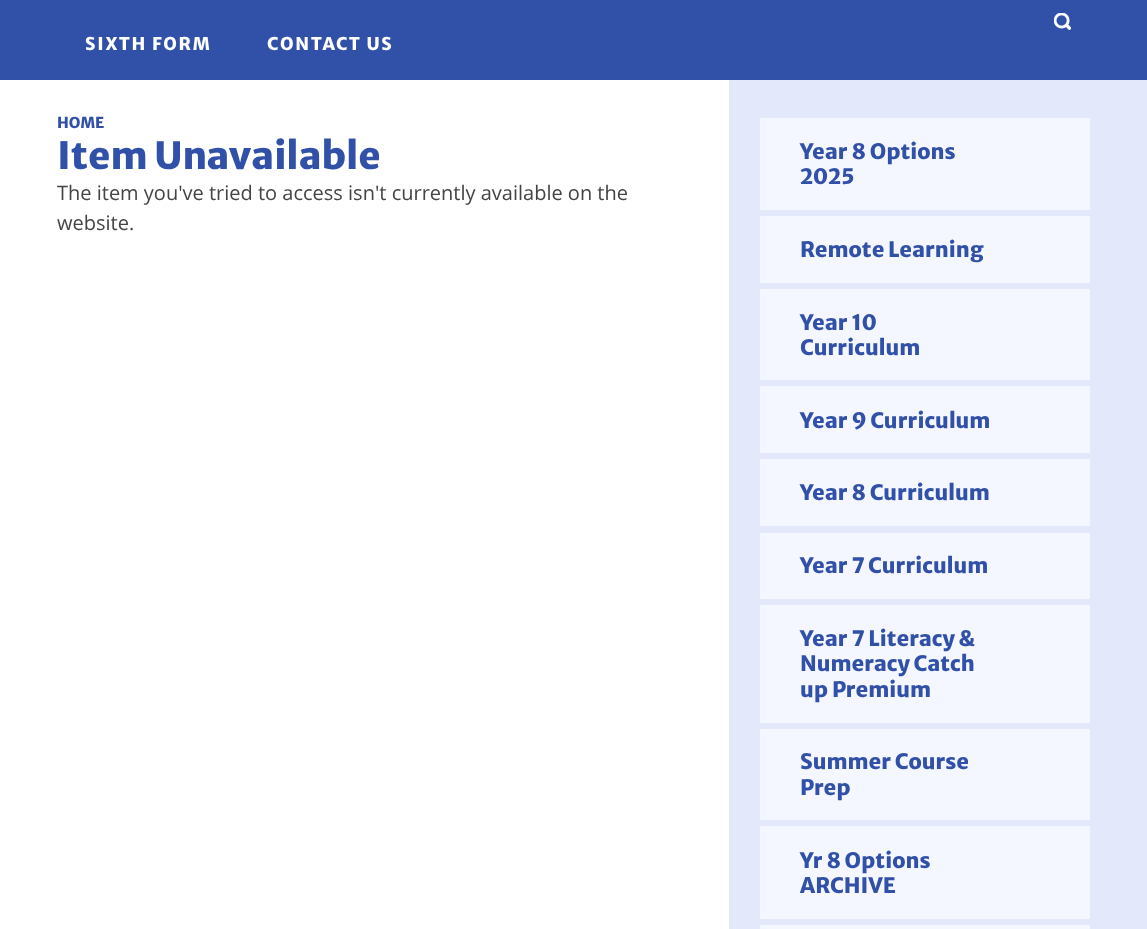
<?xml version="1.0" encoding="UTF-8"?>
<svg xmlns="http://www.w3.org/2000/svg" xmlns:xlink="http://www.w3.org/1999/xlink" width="1147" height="929">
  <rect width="100%" height="100%" fill="#ffffff" />
  <rect width="1147" height="80" fill="#3150a8" />
  <image x="1054" y="13" width="17" height="17" xlink:href="image1.png" />
  <rect x="729" y="80" width="418" height="849" fill="#e3e9fa" />
  <rect x="760" y="118" width="330" height="92" fill="#f4f7ff" />
  <rect x="760" y="216" width="330" height="67" fill="#f4f7ff" />
  <rect x="760" y="289" width="330" height="91" fill="#f4f7ff" />
  <rect x="760" y="386" width="330" height="67" fill="#f4f7ff" />
  <rect x="760" y="459" width="330" height="67" fill="#f4f7ff" />
  <rect x="760" y="533" width="330" height="66" fill="#f4f7ff" />
  <rect x="760" y="605" width="330" height="118" fill="#f4f7ff" />
  <rect x="760" y="729" width="330" height="91" fill="#f4f7ff" />
  <rect x="760" y="826" width="330" height="93" fill="#f4f7ff" />
  <rect x="760" y="925" width="330" height="4" fill="#f4f7ff" />
  <text x="85" y="50" style="font-family: Merriweather Sans; font-size: 17.5px; font-weight: 800; letter-spacing: 1.75px; fill: #ffffff">SIXTH FORM</text>
  <text x="267" y="50" style="font-family: Merriweather Sans; font-size: 17.5px; font-weight: 800; letter-spacing: 1.75px; fill: #ffffff">CONTACT US</text>
  <text x="57" y="128" style="font-family: Merriweather Sans; font-size: 15px; font-weight: 800; fill: #3150a8">HOME</text>
  <text x="57" y="169" style="font-family: Merriweather Sans; font-size: 37.5px; font-weight: 800; fill: #3150a8">Item Unavailable</text>
  <text x="57" y="200" style="font-family: Open Sans; font-size: 20px; fill: #444444">The item you've tried to access isn't currently available on the</text>
  <text x="57" y="230" style="font-family: Open Sans; font-size: 20px; fill: #444444">website.</text>
  <text x="800" y="159" style="font-family: Merriweather Sans; font-size: 21.25px; font-weight: 800; fill: #3150a8">Year 8 Options</text>
  <text x="800" y="184" style="font-family: Merriweather Sans; font-size: 21.25px; font-weight: 800; fill: #3150a8">2025</text>
  <text x="800" y="257" style="font-family: Merriweather Sans; font-size: 21.25px; font-weight: 800; fill: #3150a8">Remote Learning</text>
  <text x="800" y="330" style="font-family: Merriweather Sans; font-size: 21.25px; font-weight: 800; fill: #3150a8">Year 10</text>
  <text x="800" y="355" style="font-family: Merriweather Sans; font-size: 21.25px; font-weight: 800; fill: #3150a8">Curriculum</text>
  <text x="800" y="428" style="font-family: Merriweather Sans; font-size: 21.25px; font-weight: 800; fill: #3150a8">Year 9 Curriculum</text>
  <text x="800" y="500" style="font-family: Merriweather Sans; font-size: 21.25px; font-weight: 800; fill: #3150a8">Year 8 Curriculum</text>
  <text x="800" y="573" style="font-family: Merriweather Sans; font-size: 21.25px; font-weight: 800; fill: #3150a8">Year 7 Curriculum</text>
  <text x="800" y="646" style="font-family: Merriweather Sans; font-size: 21.25px; font-weight: 800; fill: #3150a8">Year 7 Literacy &amp;</text>
  <text x="800" y="671" style="font-family: Merriweather Sans; font-size: 21.25px; font-weight: 800; fill: #3150a8">Numeracy Catch</text>
  <text x="800" y="697" style="font-family: Merriweather Sans; font-size: 21.25px; font-weight: 800; fill: #3150a8">up Premium</text>
  <text x="800" y="769" style="font-family: Merriweather Sans; font-size: 21.25px; font-weight: 800; fill: #3150a8">Summer Course</text>
  <text x="800" y="795" style="font-family: Merriweather Sans; font-size: 21.25px; font-weight: 800; fill: #3150a8">Prep</text>
  <text x="800" y="868" style="font-family: Merriweather Sans; font-size: 21.25px; font-weight: 800; fill: #3150a8">Yr 8 Options</text>
  <text x="800" y="893" style="font-family: Merriweather Sans; font-size: 21.25px; font-weight: 800; fill: #3150a8">ARCHIVE</text>
</svg>
